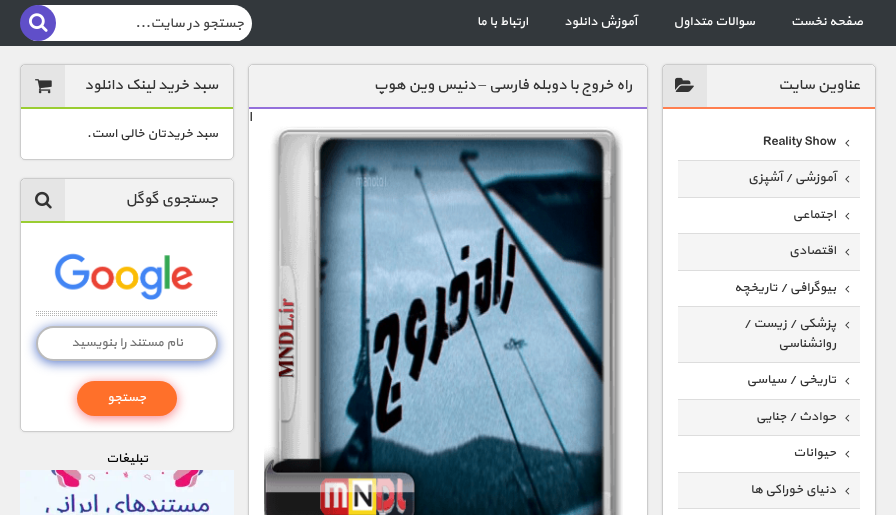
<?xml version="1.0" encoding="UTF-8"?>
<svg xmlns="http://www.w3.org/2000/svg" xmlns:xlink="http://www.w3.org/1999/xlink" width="896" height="515">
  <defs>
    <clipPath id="clip1"><rect x="20" y="5" width="242" height="36" /></clipPath>
  </defs>
  <rect width="100%" height="100%" fill="#f0f0f0" />
  <rect width="896" height="46" fill="#33383c" />
  <g clip-path="url(#clip1)">
    <rect x="22" y="5" width="230" height="37" rx="18.5" fill="#ffffff" />
  </g>
  <circle cx="38" cy="23" r="18" fill="#604fc9" />
  <image x="29" y="13" width="19" height="19" xlink:href="image1.png" />
  <rect x="662" y="64" width="214" height="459" rx="5" fill="#000000" fill-opacity="0.1" filter="blur(1px)" />
  <rect x="662" y="64" width="214" height="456" rx="5" fill="#ffffff" />
  <rect x="662.5" y="64.5" width="213" height="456" rx="4.5" fill="none" stroke="#000000" stroke-opacity="0.2" />
  <path d="M 668 65 h 202 c 3 0 5 2 5 5 v 39 h -212 v -39 c 0 -3 2 -5 5 -5 z" fill="#f2f2f2" />
  <rect x="663" y="107" width="212" height="2" fill="#ff7f50" />
  <rect x="663" y="65" width="44" height="42" fill="#000000" fill-opacity="0.05" />
  <image x="675" y="77" width="19" height="15" xlink:href="image2.png" />
  <rect x="678" y="160" width="182" height="1" fill="#dddddd" />
  <image x="845" y="139" width="5" height="8" xlink:href="image3.png" />
  <rect x="678" y="161" width="182" height="36" fill="#f5f5f5" />
  <rect x="678" y="197" width="182" height="1" fill="#dddddd" />
  <image x="845" y="175" width="5" height="8" xlink:href="image4.png" />
  <rect x="678" y="233" width="182" height="1" fill="#dddddd" />
  <image x="845" y="212" width="5" height="8" xlink:href="image3.png" />
  <rect x="678" y="234" width="182" height="36" fill="#f5f5f5" />
  <rect x="678" y="270" width="182" height="1" fill="#dddddd" />
  <image x="845" y="248" width="5" height="8" xlink:href="image4.png" />
  <rect x="678" y="306" width="182" height="1" fill="#dddddd" />
  <image x="845" y="285" width="5" height="8" xlink:href="image3.png" />
  <rect x="678" y="307" width="182" height="55" fill="#f5f5f5" />
  <rect x="678" y="362" width="182" height="1" fill="#dddddd" />
  <image x="845" y="321" width="5" height="8" xlink:href="image4.png" />
  <rect x="678" y="399" width="182" height="1" fill="#dddddd" />
  <image x="845" y="377" width="5" height="8" xlink:href="image3.png" />
  <rect x="678" y="400" width="182" height="35" fill="#f5f5f5" />
  <rect x="678" y="435" width="182" height="1" fill="#dddddd" />
  <image x="845" y="414" width="5" height="8" xlink:href="image4.png" />
  <rect x="678" y="472" width="182" height="1" fill="#dddddd" />
  <image x="845" y="450" width="5" height="8" xlink:href="image3.png" />
  <rect x="678" y="473" width="182" height="35" fill="#f5f5f5" />
  <rect x="678" y="508" width="182" height="1" fill="#dddddd" />
  <image x="845" y="487" width="5" height="8" xlink:href="image4.png" />
  <rect x="248" y="64" width="400" height="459" rx="5" fill="#000000" fill-opacity="0.1" filter="blur(1px)" />
  <rect x="248" y="64" width="400" height="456" rx="5" fill="#ffffff" />
  <rect x="248.5" y="64.5" width="399" height="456" rx="4.5" fill="none" stroke="#000000" stroke-opacity="0.2" />
  <path d="M 254 65 h 388 c 3 0 5 2 5 5 v 39 h -398 v -39 c 0 -3 2 -5 5 -5 z" fill="#f2f2f2" />
  <rect x="249" y="107" width="398" height="2" fill="#9370db" />
  <image x="264" y="126" width="359" height="389" xlink:href="image5.png" />
  <rect x="20" y="64" width="214" height="96" rx="5" fill="#000000" fill-opacity="0.1" filter="blur(1px)" />
  <rect x="20" y="64" width="214" height="96" rx="5" fill="#ffffff" />
  <rect x="20.5" y="64.5" width="213" height="95" rx="4.5" fill="none" stroke="#000000" stroke-opacity="0.2" />
  <path d="M 26 65 h 202 c 3 0 5 2 5 5 v 39 h -212 v -39 c 0 -3 2 -5 5 -5 z" fill="#f2f2f2" />
  <rect x="21" y="107" width="212" height="2" fill="#9acd32" />
  <rect x="21" y="65" width="44" height="42" fill="#000000" fill-opacity="0.05" />
  <image x="35" y="79" width="17" height="15" xlink:href="image6.png" />
  <rect x="20" y="178" width="214" height="254" rx="5" fill="#000000" fill-opacity="0.1" filter="blur(1px)" />
  <rect x="20" y="178" width="214" height="254" rx="5" fill="#ffffff" />
  <rect x="20.5" y="178.5" width="213" height="253" rx="4.5" fill="none" stroke="#000000" stroke-opacity="0.2" />
  <path d="M 26 179 h 202 c 3 0 5 2 5 5 v 39 h -212 v -39 c 0 -3 2 -5 5 -5 z" fill="#f2f2f2" />
  <rect x="21" y="221" width="212" height="2" fill="#9acd32" />
  <rect x="21" y="179" width="44" height="42" fill="#000000" fill-opacity="0.05" />
  <image x="35" y="191" width="17" height="18" xlink:href="image7.png" />
  <image x="54" y="253" width="139" height="47" xlink:href="image8.png" />
  <rect x="36" y="328" width="182" height="35" rx="17.5" fill="#244eb9" fill-opacity="0.75" filter="blur(6px)" />
  <image x="36" y="311" width="181" height="5" xlink:href="image9.png" />
  <rect x="37" y="327" width="180" height="33" rx="16.5" fill="#ffffff" stroke="#bbbbbb" stroke-width="2" />
  <rect x="77" y="383" width="100" height="35" rx="17.5" fill="#f22d33" fill-opacity="0.6" filter="blur(6px)" />
  <rect x="77" y="381" width="100" height="35" rx="17.5" fill="#ff702a" />
  <image x="20" y="470" width="214" height="45" xlink:href="image10.png" />
  <text x="863" y="25" style="font-family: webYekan; font-size: 13px; direction: rtl; fill: #ffffff">صفحه نخست</text>
  <text x="755" y="25" style="font-family: webYekan; font-size: 13px; direction: rtl; fill: #ffffff">سوالات متداول</text>
  <text x="637" y="25" style="font-family: webYekan; font-size: 13px; direction: rtl; fill: #ffffff">آموزش دانلود</text>
  <text x="528" y="25" style="font-family: webYekan; font-size: 13px; direction: rtl; fill: #ffffff">ارتباط با ما</text>
  <text x="244" y="27" style="font-family: webYekan; font-size: 14px; direction: rtl; fill: #464646">جستجو در سایت...</text>
  <text x="860" y="89" style="font-family: webYekan; font-size: 15px; direction: rtl; fill: #333333">عناوين سايت</text>
  <text x="763" y="145" style="font-family: webYekan; font-size: 13px; fill: #333333">Reality Show</text>
  <text x="836" y="181" style="font-family: webYekan; font-size: 13px; direction: rtl; fill: #333333">آموزشی / آشپزی</text>
  <text x="836" y="218" style="font-family: webYekan; font-size: 13px; direction: rtl; fill: #333333">اجتماعی</text>
  <text x="836" y="254" style="font-family: webYekan; font-size: 13px; direction: rtl; fill: #333333">اقتصادی</text>
  <text x="836" y="291" style="font-family: webYekan; font-size: 13px; direction: rtl; fill: #333333">بیوگرافی / تاریخچه</text>
  <text x="836" y="327" style="font-family: webYekan; font-size: 13px; direction: rtl; fill: #333333">پزشکی / زیست /</text>
  <text x="836" y="347" style="font-family: webYekan; font-size: 13px; direction: rtl; fill: #333333">روانشناسی</text>
  <text x="836" y="383" style="font-family: webYekan; font-size: 13px; direction: rtl; fill: #333333">تاریخی / سیاسی</text>
  <text x="836" y="420" style="font-family: webYekan; font-size: 13px; direction: rtl; fill: #333333">حوادث / جنایی</text>
  <text x="836" y="456" style="font-family: webYekan; font-size: 13px; direction: rtl; fill: #333333">حیوانات</text>
  <text x="836" y="493" style="font-family: webYekan; font-size: 13px; direction: rtl; fill: #333333">دنیای خوراکی ها</text>
  <text x="632" y="89" style="font-family: webYekan; font-size: 15px; direction: rtl; fill: #333333">راه خروج با دوبله فارسی</text>
  <text x="486" y="89" style="font-family: Liberation Serif; font-size: 15px; direction: rtl; fill: #333333">–</text>
  <text x="476" y="89" style="font-family: webYekan; font-size: 15px; direction: rtl; fill: #333333">دنیس وین هوپ</text>
  <text x="252" y="121" style="font-family: webYekan; font-size: 15px; direction: rtl; fill: #333333">ا</text>
  <text x="218" y="89" style="font-family: webYekan; font-size: 15px; direction: rtl; fill: #333333">سبد خرید لینک دانلود</text>
  <text x="218" y="137" style="font-family: webYekan; font-size: 13px; direction: rtl; fill: #333333">سبد خریدتان خالی است.</text>
  <text x="218" y="203" style="font-family: webYekan; font-size: 15px; direction: rtl; fill: #333333">جستجوی گوگل</text>
  <text x="183" y="346" style="font-family: webYekan; font-size: 13px; direction: rtl; fill: #757575">نام مستند را بنویسید</text>
  <text x="146" y="401" style="font-family: webYekan; font-size: 13px; direction: rtl; fill: #ffffff">جستجو</text>
  <text x="148" y="462" style="font-family: webYekan; font-size: 13px; direction: rtl; fill: #000000">تبليغات</text>
</svg>
